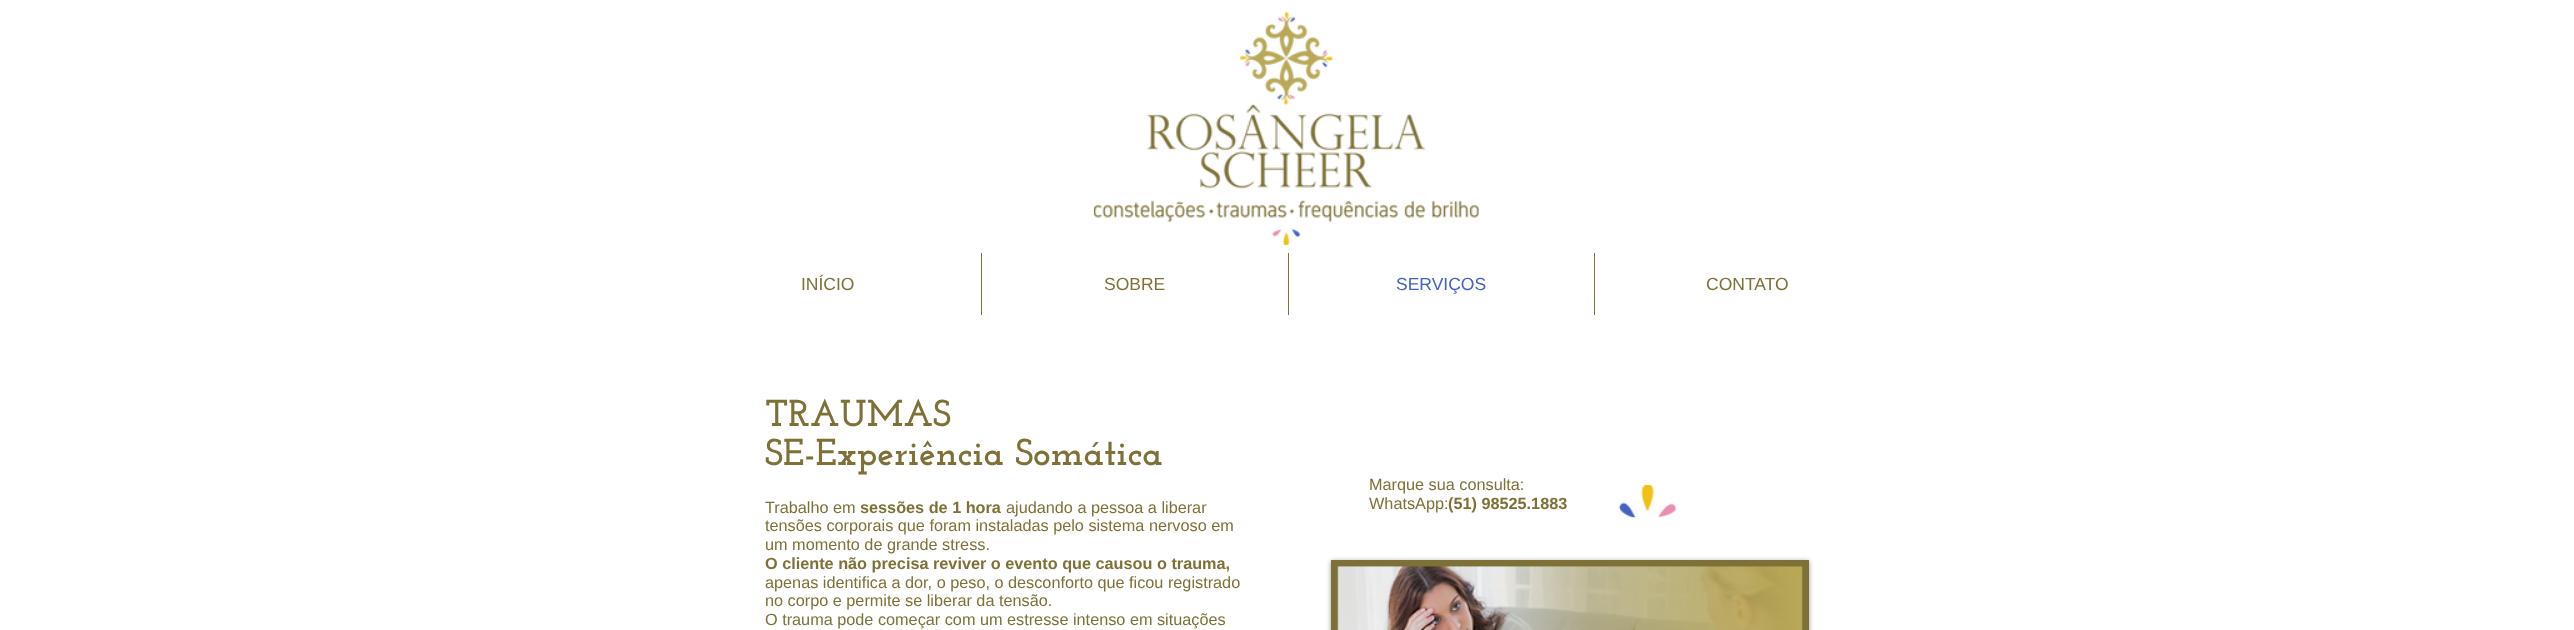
<?xml version="1.0" encoding="UTF-8"?>
<svg xmlns="http://www.w3.org/2000/svg" xmlns:xlink="http://www.w3.org/1999/xlink" width="2574" height="630">
  <rect width="100%" height="100%" fill="#ffffff" />
  <image x="1093" y="12" width="386" height="233" xlink:href="image1.png" />
  <rect x="981" y="253" width="1" height="62" fill="#7d7137" />
  <rect x="1288" y="253" width="1" height="62" fill="#7d7137" />
  <rect x="1594" y="253" width="1" height="62" fill="#7d7137" />
  <image x="1618" y="485" width="59" height="33" xlink:href="image2.png" />
  <rect x="1331" y="561" width="478" height="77" fill="#000000" fill-opacity="0.4" filter="blur(2.5px)" />
  <rect x="1331" y="560" width="478" height="70" fill="#7d7137" />
  <image x="1337" y="566" width="466" height="64" xlink:href="image3.png" />
  <text x="801" y="290" style="font-family: Liberation Sans; font-size: 17.5px; fill: #7d7137">INÍCIO</text>
  <text x="1104" y="290" style="font-family: Liberation Sans; font-size: 17.5px; fill: #7d7137">SOBRE</text>
  <text x="1396" y="290" style="font-family: Liberation Sans; font-size: 17.5px; fill: #4460c1">SERVIÇOS</text>
  <text x="1706" y="290" style="font-family: Liberation Sans; font-size: 17.5px; fill: #7d7137">CONTATO</text>
  <text x="765" y="426" style="font-family: Josefin Slab; font-size: 37.5px; font-weight: bold; fill: #7d7137">TRAUMAS</text>
  <text x="765" y="465" style="font-family: Josefin Slab; font-size: 37.5px; font-weight: bold; fill: #7d7137">SE-Experiência Somática</text>
  <text x="765" y="513" style="font-family: Liberation Sans; font-size: 16.25px; fill: #7d7137">Trabalho em</text>
  <text x="860" y="513" style="font-family: Liberation Sans; font-size: 16.25px; font-weight: bold; fill: #7d7137">sessões de 1 hora</text>
  <text x="1006" y="513" style="font-family: Liberation Sans; font-size: 16.25px; fill: #7d7137">ajudando a pessoa a liberar</text>
  <text x="765" y="531" style="font-family: Liberation Sans; font-size: 16.25px; fill: #7d7137">tensões corporais que foram instaladas pelo sistema nervoso em</text>
  <text x="765" y="550" style="font-family: Liberation Sans; font-size: 16.25px; fill: #7d7137">um momento de grande stress.</text>
  <text x="765" y="569" style="font-family: Liberation Sans; font-size: 16.25px; font-weight: bold; fill: #7d7137">O cliente não precisa reviver o evento que causou o trauma,</text>
  <text x="765" y="588" style="font-family: Liberation Sans; font-size: 16.25px; fill: #7d7137">apenas identifica a dor, o peso, o desconforto que ficou registrado</text>
  <text x="765" y="606" style="font-family: Liberation Sans; font-size: 16.25px; fill: #7d7137">no corpo e permite se liberar da tensão.</text>
  <text x="765" y="625" style="font-family: Liberation Sans; font-size: 16.25px; fill: #7d7137">O trauma pode começar com um estresse intenso em situações</text>
  <text x="1369" y="490" style="font-family: Liberation Sans; font-size: 16.25px; fill: #7d7137">Marque sua consulta:</text>
  <text x="1369" y="509" style="font-family: Liberation Sans; font-size: 16.25px; fill: #7d7137">WhatsApp:</text>
  <text x="1448" y="509" style="font-family: Liberation Sans; font-size: 16.25px; font-weight: bold; fill: #7d7137">(51) 98525.1883</text>
</svg>
